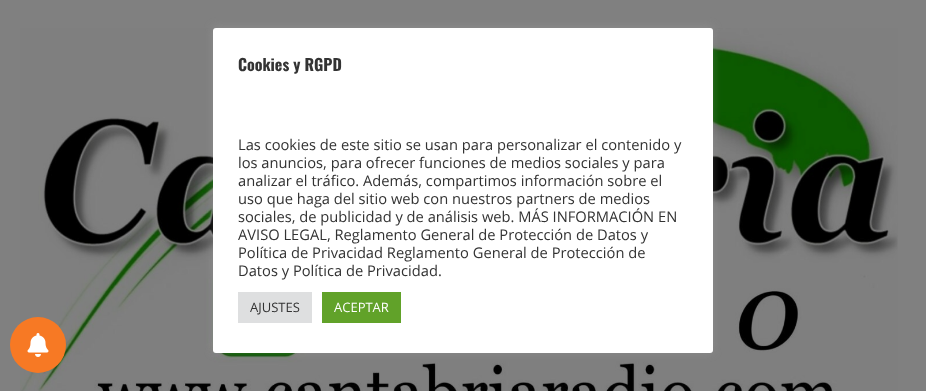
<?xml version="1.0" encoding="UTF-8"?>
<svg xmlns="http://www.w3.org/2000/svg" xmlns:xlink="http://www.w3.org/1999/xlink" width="926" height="391">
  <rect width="100%" height="100%" fill="#808080" />
  <image x="20" y="28" width="878" height="363" xlink:href="image1.png" />
  <rect x="213" y="27" width="500" height="325" rx="3" fill="#acabab" fill-opacity="0.3" filter="blur(5px)" />
  <rect x="213" y="28" width="500" height="325" rx="3" fill="#ffffff" />
  <rect x="238" y="292" width="74" height="31" fill="#dedfe0" />
  <rect x="322" y="292" width="79" height="31" fill="#61a229" />
  <circle cx="38" cy="345" r="28" fill="#f77924" />
  <image x="27" y="333" width="22" height="24" xlink:href="image2.png" />
  <text x="238" y="71" style="font-family: Oswald; font-size: 16px; font-weight: bold; fill: #333333">Cookies y RGPD</text>
  <text x="238" y="150" style="font-family: Open Sans; font-size: 14.7px; fill: #333333">Las cookies de este sitio se usan para personalizar el contenido y</text>
  <text x="238" y="168" style="font-family: Open Sans; font-size: 14.7px; fill: #333333">los anuncios, para ofrecer funciones de medios sociales y para</text>
  <text x="238" y="186" style="font-family: Open Sans; font-size: 14.7px; fill: #333333">analizar el tráfico. Además, compartimos información sobre el</text>
  <text x="238" y="204" style="font-family: Open Sans; font-size: 14.7px; fill: #333333">uso que haga del sitio web con nuestros partners de medios</text>
  <text x="238" y="222" style="font-family: Open Sans; font-size: 14.7px; fill: #333333">sociales, de publicidad y de análisis web. MÁS INFORMACIÓN EN</text>
  <text x="238" y="240" style="font-family: Open Sans; font-size: 14.7px; fill: #333333">AVISO LEGAL, Reglamento General de Protección de Datos y</text>
  <text x="238" y="258" style="font-family: Open Sans; font-size: 14.7px; fill: #333333">Política de Privacidad Reglamento General de Protección de</text>
  <text x="238" y="276" style="font-family: Open Sans; font-size: 14.7px; fill: #333333">Datos y Política de Privacidad.</text>
  <text x="250" y="312" style="font-family: Open Sans; font-size: 13px; fill: #333333">AJUSTES</text>
  <text x="334" y="312" style="font-family: Open Sans; font-size: 13px; fill: #ffffff">ACEPTAR</text>
</svg>
